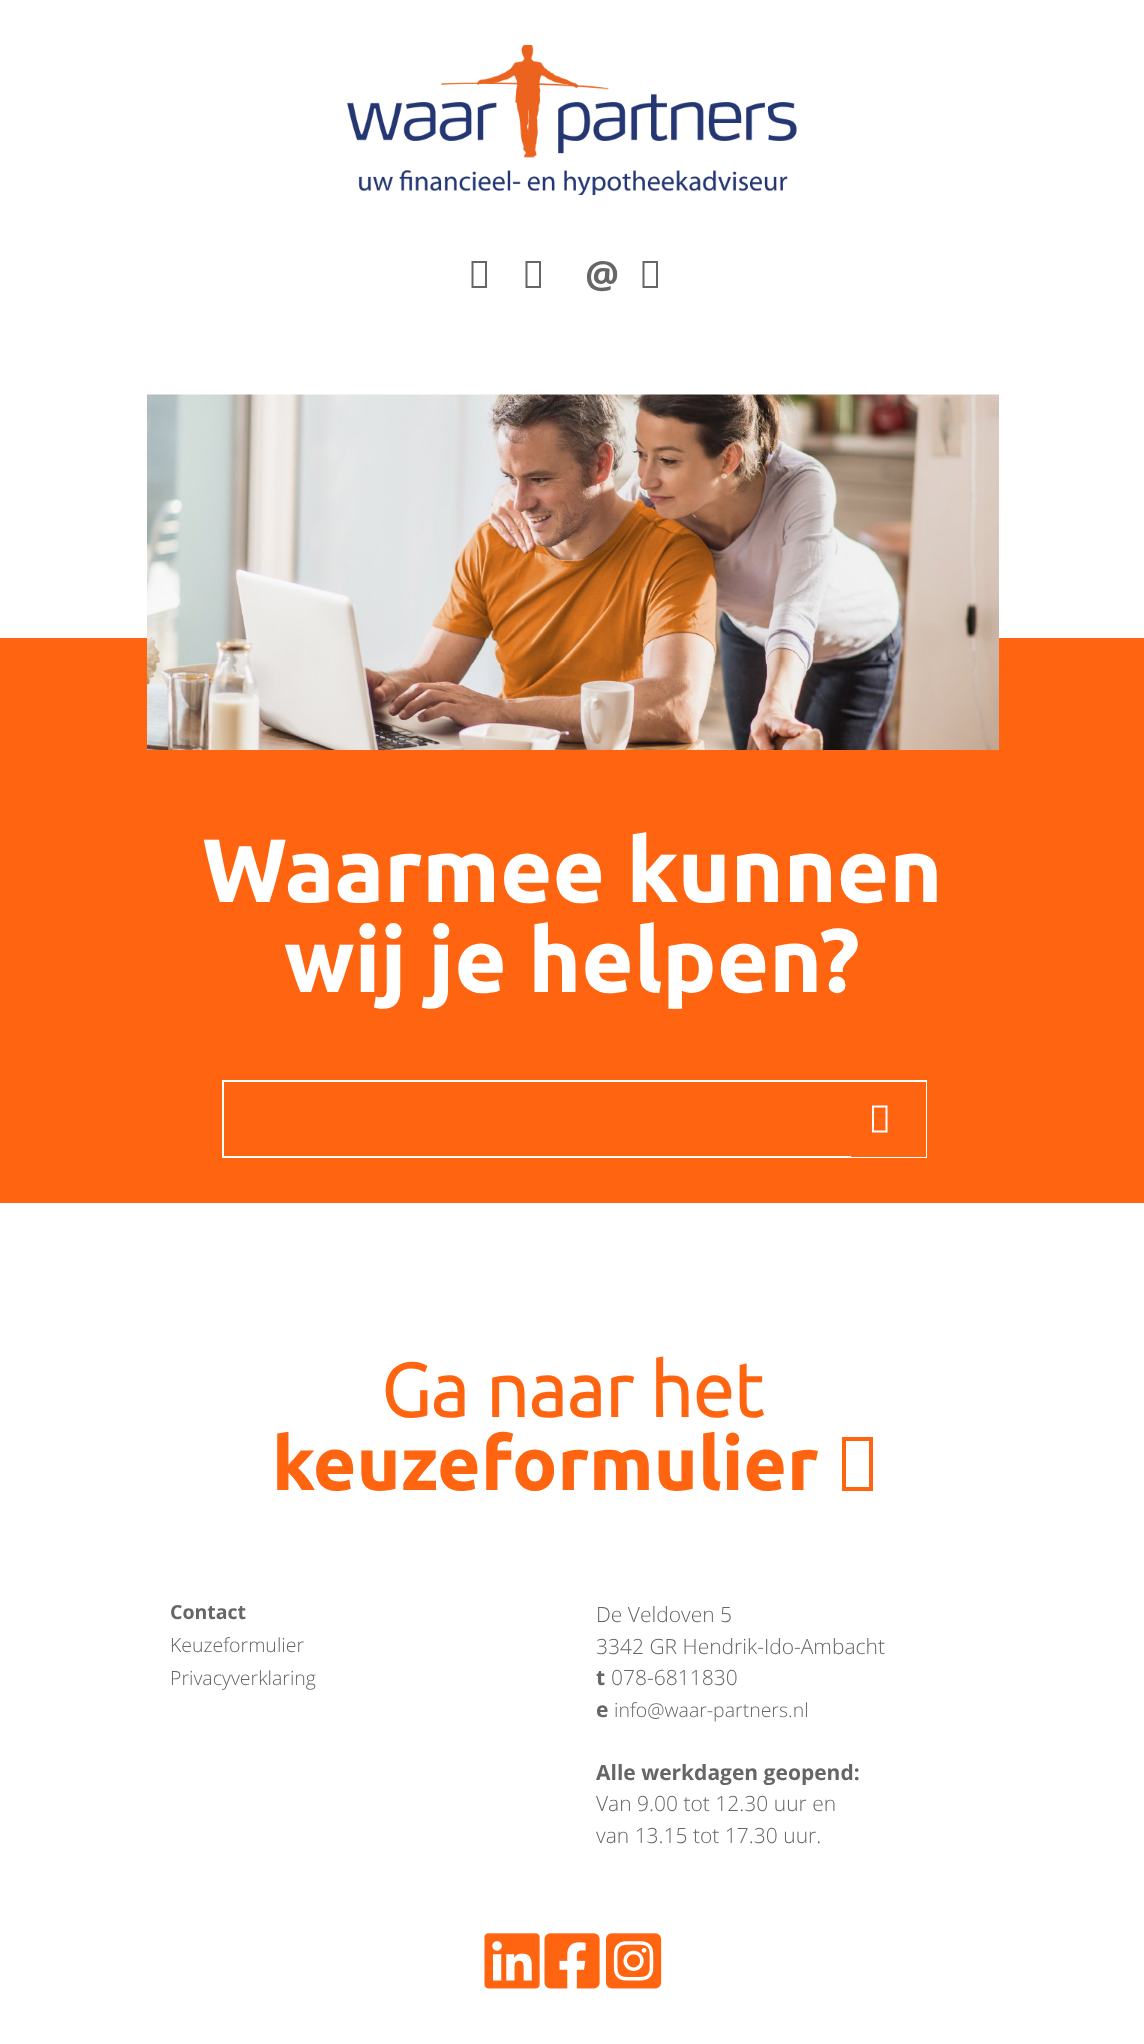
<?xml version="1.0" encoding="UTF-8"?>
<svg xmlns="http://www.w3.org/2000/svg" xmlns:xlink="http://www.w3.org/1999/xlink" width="1144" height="2044">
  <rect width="100%" height="100%" fill="#ffffff" />
  <image x="347" y="45" width="450" height="150" xlink:href="image1.png" />
  <path d="M 471.5 288 v -27 h 15.5 v 27 z m 2 -2 h 11.5 v -23 h -11.5 z" fill="#666666" />
  <path d="M 525.5 288 v -27 h 15.5 v 27 z m 2 -2 h 11.5 v -23 h -11.5 z" fill="#666666" />
  <path d="M 642.5 288 v -27 h 15.5 v 27 z m 2 -2 h 11.5 v -23 h -11.5 z" fill="#666666" />
  <rect y="638" width="1144" height="565" fill="#ff6511" />
  <image x="147" y="394" width="852" height="356" xlink:href="image2.png" />
  <rect x="223" y="1081" width="703" height="76" fill="none" stroke="#ffffff" stroke-width="2" />
  <rect x="851" y="1082" width="75" height="75" fill="#ff6511" />
  <path d="M 872 1132.5 v -27 h 15.5 v 27 z m 2 -2 h 11.5 v -23 h -11.5 z" fill="#ffffff" />
  <path d="M 842 1491 v -54 h 31 v 54 z m 4 -4 h 23 v -46 h -23 z" fill="#ff6511" />
  <image x="484" y="1933" width="56" height="56" xlink:href="image3.png" />
  <image x="544" y="1933" width="56" height="56" xlink:href="image4.png" />
  <image x="606" y="1933" width="56" height="56" xlink:href="image5.png" />
  <text x="585" y="288" style="font-family: Open Sans; font-size: 38px; font-weight: bold; fill: #666666">@</text>
  <text x="202" y="902" style="font-family: Ubuntu; font-size: 90px; font-weight: bold; fill: #ffffff">Waarmee kunnen</text>
  <text x="284" y="992" style="font-family: Ubuntu; font-size: 90px; font-weight: bold; fill: #ffffff">wij je helpen?</text>
  <text x="381" y="1417" style="font-family: 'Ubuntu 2'; font-size: 75px; font-weight: bold; fill: #ff6511">Ga naar het</text>
  <text x="272" y="1490" style="font-family: Ubuntu; font-size: 75px; font-weight: bold; fill: #ff6511">keuzeformulier</text>
  <text x="170" y="1619" style="font-family: Open Sans; font-size: 19.5px; font-weight: bold; fill: #666666">Contact</text>
  <text x="170" y="1652" style="font-family: Open Sans; font-size: 19.5px; font-weight: 300; fill: #666666">Keuzeformulier</text>
  <text x="170" y="1685" style="font-family: Open Sans; font-size: 19.5px; font-weight: 300; fill: #666666">Privacyverklaring</text>
  <text x="596" y="1622" style="font-family: Open Sans; font-size: 21px; font-weight: 300; fill: #666666">De Veldoven 5</text>
  <text x="596" y="1654" style="font-family: Open Sans; font-size: 21px; font-weight: 300; fill: #666666">3342 GR Hendrik-Ido-Ambacht</text>
  <text x="596" y="1685" style="font-family: Open Sans; font-size: 21px; font-weight: bold; fill: #666666">t</text>
  <text x="611" y="1685" style="font-family: Open Sans; font-size: 21px; font-weight: 300; fill: #666666">078-6811830</text>
  <text x="596" y="1717" style="font-family: Open Sans; font-size: 21px; font-weight: bold; fill: #666666">e</text>
  <text x="614" y="1717" style="font-family: Open Sans; font-size: 19.5px; font-weight: 300; fill: #666666">info@waar-partners.nl</text>
  <text x="596" y="1780" style="font-family: Open Sans; font-size: 21px; font-weight: bold; fill: #666666">Alle werkdagen geopend:</text>
  <text x="596" y="1811" style="font-family: Open Sans; font-size: 21px; font-weight: 300; fill: #666666">Van 9.00 tot 12.30 uur en</text>
  <text x="596" y="1843" style="font-family: Open Sans; font-size: 21px; font-weight: 300; fill: #666666">van 13.15 tot 17.30 uur.</text>
</svg>
